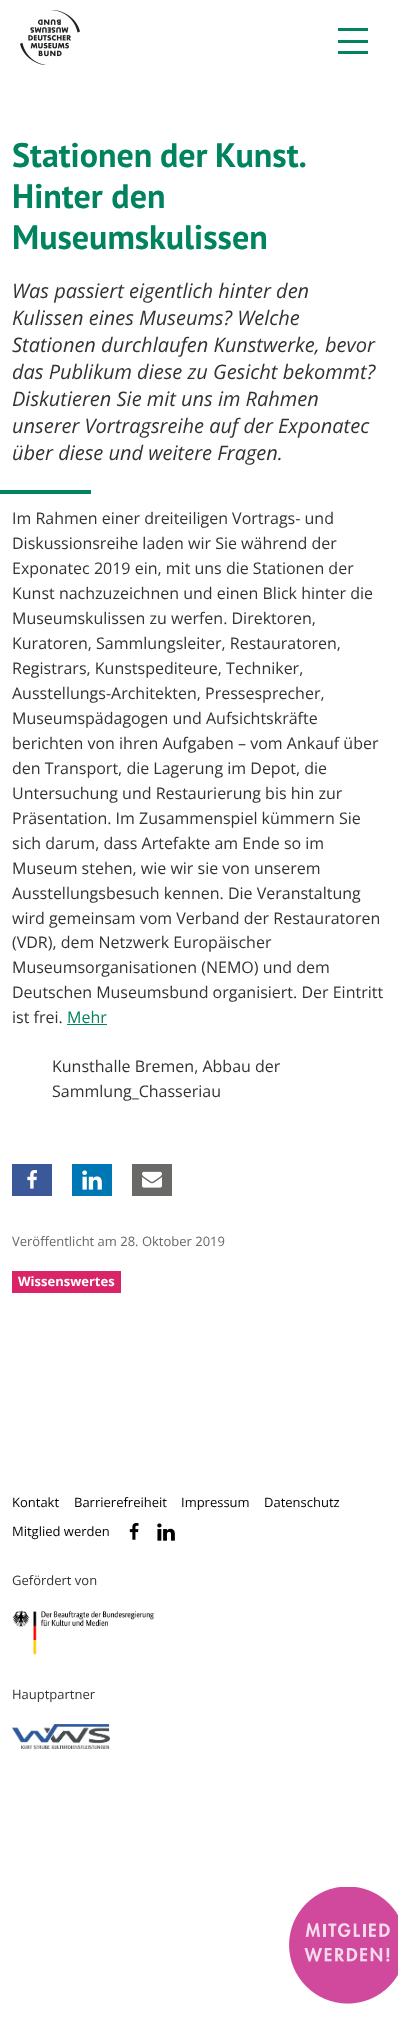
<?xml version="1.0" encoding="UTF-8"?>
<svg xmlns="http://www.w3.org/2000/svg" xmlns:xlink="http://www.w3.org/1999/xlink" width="398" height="2035">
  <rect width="100%" height="100%" fill="#ffffff" />
  <image x="20" y="10" width="60" height="55" xlink:href="image1.png" />
  <rect x="338" y="28" width="30" height="3" fill="#00835e" />
  <rect x="338" y="51" width="30" height="3" fill="#00835e" />
  <rect x="338" y="40" width="30" height="3" fill="#00835e" />
  <rect y="490" width="91" height="4" fill="#00835e" />
  <rect x="67" y="1024" width="40" height="1" fill="#00835e" />
  <rect x="12" y="1164" width="40" height="32" fill="#3b5998" />
  <image x="27" y="1170" width="10" height="19" xlink:href="image2.png" />
  <rect x="72" y="1164" width="40" height="32" fill="#0077b5" />
  <image x="82" y="1170" width="20" height="20" xlink:href="image3.png" />
  <rect x="132" y="1164" width="40" height="32" fill="#696967" />
  <image x="142" y="1171" width="20" height="17" xlink:href="image4.png" />
  <rect x="12" y="1271" width="109" height="22" fill="#d92468" />
  <image x="289" y="1887" width="109" height="117" xlink:href="image5.png" />
  <image x="129" y="1523" width="10" height="17" xlink:href="image6.png" />
  <image x="157" y="1523" width="18" height="18" xlink:href="image7.png" />
  <image x="12" y="1610" width="142" height="45" xlink:href="image8.png" />
  <image x="12" y="1724" width="98" height="25" xlink:href="image9.png" />
  <text x="12" y="167" word-spacing="-1" style="font-family: PT Sans; font-size: 34px; font-weight: bold; fill: #00835e">Stationen der Kunst.</text>
  <text x="12" y="208" style="font-family: PT Sans; font-size: 34px; font-weight: bold; fill: #00835e">Hinter den</text>
  <text x="12" y="249" style="font-family: PT Sans; font-size: 34px; font-weight: bold; fill: #00835e">Museumskulissen</text>
  <text x="12" y="298" style="font-family: Open Sans; font-size: 20px; font-style: italic; fill: #333333">Was passiert eigentlich hinter den</text>
  <text x="12" y="325" style="font-family: Open Sans; font-size: 20px; font-style: italic; fill: #333333">Kulissen eines Museums? Welche</text>
  <text x="12" y="352" style="font-family: Open Sans; font-size: 20px; font-style: italic; fill: #333333">Stationen durchlaufen Kunstwerke, bevor</text>
  <text x="12" y="379" style="font-family: Open Sans; font-size: 20px; font-style: italic; fill: #333333">das Publikum diese zu Gesicht bekommt?</text>
  <text x="12" y="406" style="font-family: Open Sans; font-size: 20px; font-style: italic; fill: #333333">Diskutieren Sie mit uns im Rahmen</text>
  <text x="12" y="433" style="font-family: Open Sans; font-size: 20px; font-style: italic; fill: #333333">unserer Vortragsreihe auf der Exponatec</text>
  <text x="12" y="460" style="font-family: Open Sans; font-size: 20px; font-style: italic; fill: #333333">über diese und weitere Fragen.</text>
  <text x="12" y="524" style="font-family: Open Sans; font-size: 16px; fill: #333333">Im Rahmen einer dreiteiligen Vortrags- und</text>
  <text x="12" y="549" style="font-family: Open Sans; font-size: 16px; fill: #333333">Diskussionsreihe laden wir Sie während der</text>
  <text x="12" y="574" style="font-family: Open Sans; font-size: 16px; fill: #333333">Exponatec 2019 ein, mit uns die Stationen der</text>
  <text x="12" y="599" style="font-family: Open Sans; font-size: 16px; fill: #333333">Kunst nachzuzeichnen und einen Blick hinter die</text>
  <text x="12" y="624" style="font-family: Open Sans; font-size: 16px; fill: #333333">Museumskulissen zu werfen. Direktoren,</text>
  <text x="12" y="649" style="font-family: Open Sans; font-size: 16px; fill: #333333">Kuratoren, Sammlungsleiter, Restauratoren,</text>
  <text x="12" y="674" style="font-family: Open Sans; font-size: 16px; fill: #333333">Registrars, Kunstspediteure, Techniker,</text>
  <text x="12" y="699" style="font-family: Open Sans; font-size: 16px; fill: #333333">Ausstellungs-Architekten, Pressesprecher,</text>
  <text x="12" y="724" style="font-family: Open Sans; font-size: 16px; fill: #333333">Museumspädagogen und Aufsichtskräfte</text>
  <text x="12" y="749" style="font-family: Open Sans; font-size: 16px; fill: #333333">berichten von ihren Aufgaben – vom Ankauf über</text>
  <text x="12" y="774" style="font-family: Open Sans; font-size: 16px; fill: #333333">den Transport, die Lagerung im Depot, die</text>
  <text x="12" y="799" style="font-family: Open Sans; font-size: 16px; fill: #333333">Untersuchung und Restaurierung bis hin zur</text>
  <text x="12" y="824" style="font-family: Open Sans; font-size: 16px; fill: #333333">Präsentation. Im Zusammenspiel kümmern Sie</text>
  <text x="12" y="849" style="font-family: Open Sans; font-size: 16px; fill: #333333">sich darum, dass Artefakte am Ende so im</text>
  <text x="12" y="874" style="font-family: Open Sans; font-size: 16px; fill: #333333">Museum stehen, wie wir sie von unserem</text>
  <text x="12" y="899" style="font-family: Open Sans; font-size: 16px; fill: #333333">Ausstellungsbesuch kennen. Die Veranstaltung</text>
  <text x="12" y="924" style="font-family: Open Sans; font-size: 16px; fill: #333333">wird gemeinsam vom Verband der Restauratoren</text>
  <text x="12" y="948" style="font-family: Open Sans; font-size: 16px; fill: #333333">(VDR), dem Netzwerk Europäischer</text>
  <text x="12" y="973" style="font-family: Open Sans; font-size: 16px; fill: #333333">Museumsorganisationen (NEMO) und dem</text>
  <text x="12" y="998" style="font-family: Open Sans; font-size: 16px; fill: #333333">Deutschen Museumsbund organisiert. Der Eintritt</text>
  <text x="12" y="1023" style="font-family: Open Sans; font-size: 16px; fill: #333333">ist frei.</text>
  <text x="67" y="1023" style="font-family: Open Sans; font-size: 16px; fill: #00835e">Mehr</text>
  <text x="52" y="1072" style="font-family: Open Sans; font-size: 16px; fill: #333333">Kunsthalle Bremen, Abbau der</text>
  <text x="52" y="1097" style="font-family: Open Sans; font-size: 16px; fill: #333333">Sammlung_Chasseriau</text>
  <text x="12" y="1246" style="font-family: Open Sans; font-size: 13px; fill: #696967">Veröffentlicht am 28. Oktober 2019</text>
  <text x="18" y="1286" style="font-family: Open Sans; font-size: 13px; font-weight: bold; fill: #ffffff">Wissenswertes</text>
  <text x="12" y="1507" style="font-family: Open Sans; font-size: 13px; fill: #000000">Kontakt</text>
  <text x="74" y="1507" style="font-family: Open Sans; font-size: 13px; fill: #000000">Barrierefreiheit</text>
  <text x="181" y="1507" style="font-family: Open Sans; font-size: 13px; fill: #000000">Impressum</text>
  <text x="264" y="1507" style="font-family: Open Sans; font-size: 13px; fill: #000000">Datenschutz</text>
  <text x="12" y="1536" style="font-family: Open Sans; font-size: 13px; fill: #000000">Mitglied werden</text>
  <text x="12" y="1585" style="font-family: Open Sans; font-size: 13px; fill: #333333">Gefördert von</text>
  <text x="12" y="1699" style="font-family: Open Sans; font-size: 13px; fill: #333333">Hauptpartner</text>
</svg>
